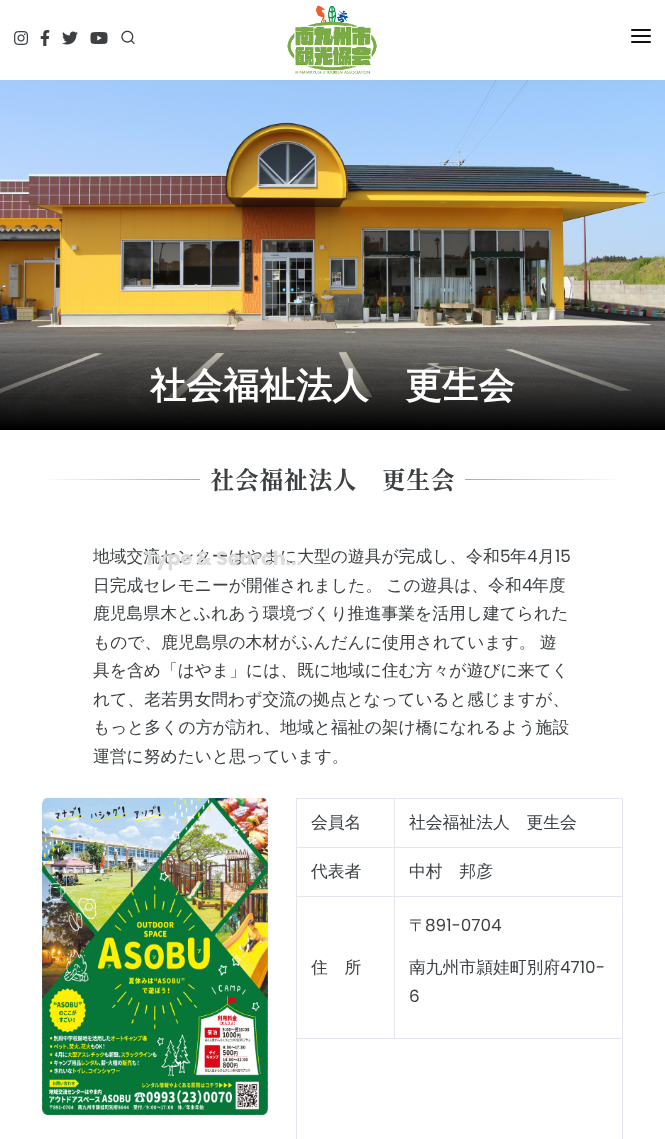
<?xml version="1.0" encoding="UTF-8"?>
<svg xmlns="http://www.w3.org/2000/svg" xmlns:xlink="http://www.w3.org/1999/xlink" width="665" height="1139">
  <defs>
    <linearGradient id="g1" gradientUnits="userSpaceOnUse" x1="200" y1="480" x2="42" y2="480"><stop offset="0" stop-color="#7db4e6" /><stop offset="1" stop-color="#ffffff" /></linearGradient>
    <linearGradient id="g2" gradientUnits="userSpaceOnUse" x1="465" y1="480" x2="623" y2="480"><stop offset="0" stop-color="#7db4e6" /><stop offset="1" stop-color="#ffffff" /></linearGradient>
  </defs>
  <rect width="100%" height="100%" fill="#ffffff" />
  <image x="0" y="80" width="665" height="350" xlink:href="image1.png" />
  <rect x="42" y="479" width="158" height="1" fill="url(#g1)" />
  <rect x="465" y="479" width="158" height="1" fill="url(#g2)" />
  <image x="42" y="798" width="226" height="317" xlink:href="image2.png" />
  <rect x="296" y="798" width="327" height="1" fill="#e4e6ef" />
  <rect x="622" y="798" width="1" height="341" fill="#e4e6ef" />
  <rect x="296" y="798" width="1" height="341" fill="#e4e6ef" />
  <rect x="296" y="847" width="327" height="1" fill="#e4e6ef" />
  <rect x="296" y="896" width="327" height="1" fill="#e4e6ef" />
  <rect x="296" y="1038" width="327" height="1" fill="#e4e6ef" />
  <rect x="394" y="798" width="1" height="241" fill="#e4e6ef" />
  <image x="14" y="31" width="15" height="14" xlink:href="image3.png" />
  <image x="40" y="30" width="10" height="16" xlink:href="image4.png" />
  <image x="62" y="31" width="16" height="14" xlink:href="image5.png" />
  <image x="90" y="32" width="18" height="12" xlink:href="image6.png" />
  <image x="121" y="30" width="14" height="14" xlink:href="image7.png" />
  <image x="287" y="5" width="90" height="69" xlink:href="image8.png" />
  <rect x="631" y="35" width="20" height="2" rx="1" fill="#111111" />
  <rect x="631" y="29" width="20" height="2" rx="1" fill="#111111" />
  <rect x="631" y="41" width="20" height="2" rx="1" fill="#111111" />
  <text x="150" y="398" style="font-family: WenQuanYi Zen Hei; font-size: 36px; font-weight: bold; letter-spacing: 0.5px; fill: #ffffff">社会福祉法人　更生会</text>
  <text x="210" y="489" style="font-family: 'Shippori Mincho B1'; font-size: 24.5px; font-weight: bold; fill: #3c4043">社会福祉法人　更生会</text>
  <text x="93" y="562" style="font-family: WenQuanYi Zen Hei; font-size: 16.8px; font-weight: 500; fill: #3c4043">地域交流センターはやまに大型の遊具が完成し、令和</text>
  <text x="500" y="562" style="font-family: Poppins; font-size: 16.8px; fill: #3c4043">5</text>
  <text x="510" y="562" style="font-family: WenQuanYi Zen Hei; font-size: 16.8px; font-weight: 500; fill: #3c4043">年</text>
  <text x="527" y="562" style="font-family: Poppins; font-size: 16.8px; fill: #3c4043">4</text>
  <text x="538" y="562" style="font-family: WenQuanYi Zen Hei; font-size: 16.8px; font-weight: 500; fill: #3c4043">月</text>
  <text x="555" y="562" style="font-family: Poppins; font-size: 16.8px; fill: #3c4043">15</text>
  <text x="93" y="591" word-spacing="-1" style="font-family: WenQuanYi Zen Hei; font-size: 16.8px; font-weight: 500; fill: #3c4043">日完成セレモニーが開催されました。 この遊具は、令和</text>
  <text x="522" y="591" style="font-family: Poppins; font-size: 16.8px; fill: #3c4043">4</text>
  <text x="532" y="591" style="font-family: WenQuanYi Zen Hei; font-size: 16.8px; font-weight: 500; fill: #3c4043">年度</text>
  <text x="93" y="619" style="font-family: WenQuanYi Zen Hei; font-size: 16.8px; font-weight: 500; fill: #3c4043">鹿児島県木とふれあう環境づくり推進事業を活用し建てられた</text>
  <text x="93" y="648" word-spacing="-1" style="font-family: WenQuanYi Zen Hei; font-size: 16.8px; font-weight: 500; fill: #3c4043">もので、鹿児島県の木材がふんだんに使用されています。 遊</text>
  <text x="93" y="676" style="font-family: WenQuanYi Zen Hei; font-size: 16.8px; font-weight: 500; fill: #3c4043">具を含め「はやま」には、既に地域に住む方々が遊びに来てく</text>
  <text x="93" y="705" style="font-family: WenQuanYi Zen Hei; font-size: 16.8px; font-weight: 500; fill: #3c4043">れて、老若男女問わず交流の拠点となっていると感じますが、</text>
  <text x="93" y="733" style="font-family: WenQuanYi Zen Hei; font-size: 16.8px; font-weight: 500; fill: #3c4043">もっと多くの方が訪れ、地域と福祉の架け橋になれるよう施設</text>
  <text x="93" y="762" style="font-family: WenQuanYi Zen Hei; font-size: 16.8px; font-weight: 500; fill: #3c4043">運営に努めたいと思っています。</text>
  <text x="311" y="828" style="font-family: WenQuanYi Zen Hei; font-size: 16.8px; font-weight: 500; fill: #3c4043">会員名</text>
  <text x="409" y="828" style="font-family: WenQuanYi Zen Hei; font-size: 16.8px; font-weight: 500; fill: #3c4043">社会福祉法人　更生会</text>
  <text x="311" y="877" style="font-family: WenQuanYi Zen Hei; font-size: 16.8px; font-weight: 500; fill: #3c4043">代表者</text>
  <text x="409" y="877" style="font-family: WenQuanYi Zen Hei; font-size: 16.8px; font-weight: 500; fill: #3c4043">中村　邦彦</text>
  <text x="311" y="973" style="font-family: WenQuanYi Zen Hei; font-size: 16.8px; font-weight: 500; fill: #3c4043">住　所</text>
  <text x="409" y="931" style="font-family: WenQuanYi Zen Hei; font-size: 16.8px; font-weight: 500; fill: #3c4043">〒</text>
  <text x="425" y="931" style="font-family: Poppins; font-size: 16.8px; fill: #3c4043">891-0704</text>
  <text x="409" y="973" style="font-family: WenQuanYi Zen Hei; font-size: 16.8px; font-weight: 500; fill: #3c4043">南九州市頴娃町別府</text>
  <text x="560" y="973" style="font-family: Poppins; font-size: 16.8px; fill: #3c4043">4710-</text>
  <text x="409" y="1002" style="font-family: Poppins; font-size: 16.8px; fill: #3c4043">6</text>
  <text x="144" y="565" style="font-family: Poppins; font-size: 19.25px; font-weight: bold; fill: #dbdcdc">Type &amp; Search...</text>
</svg>
